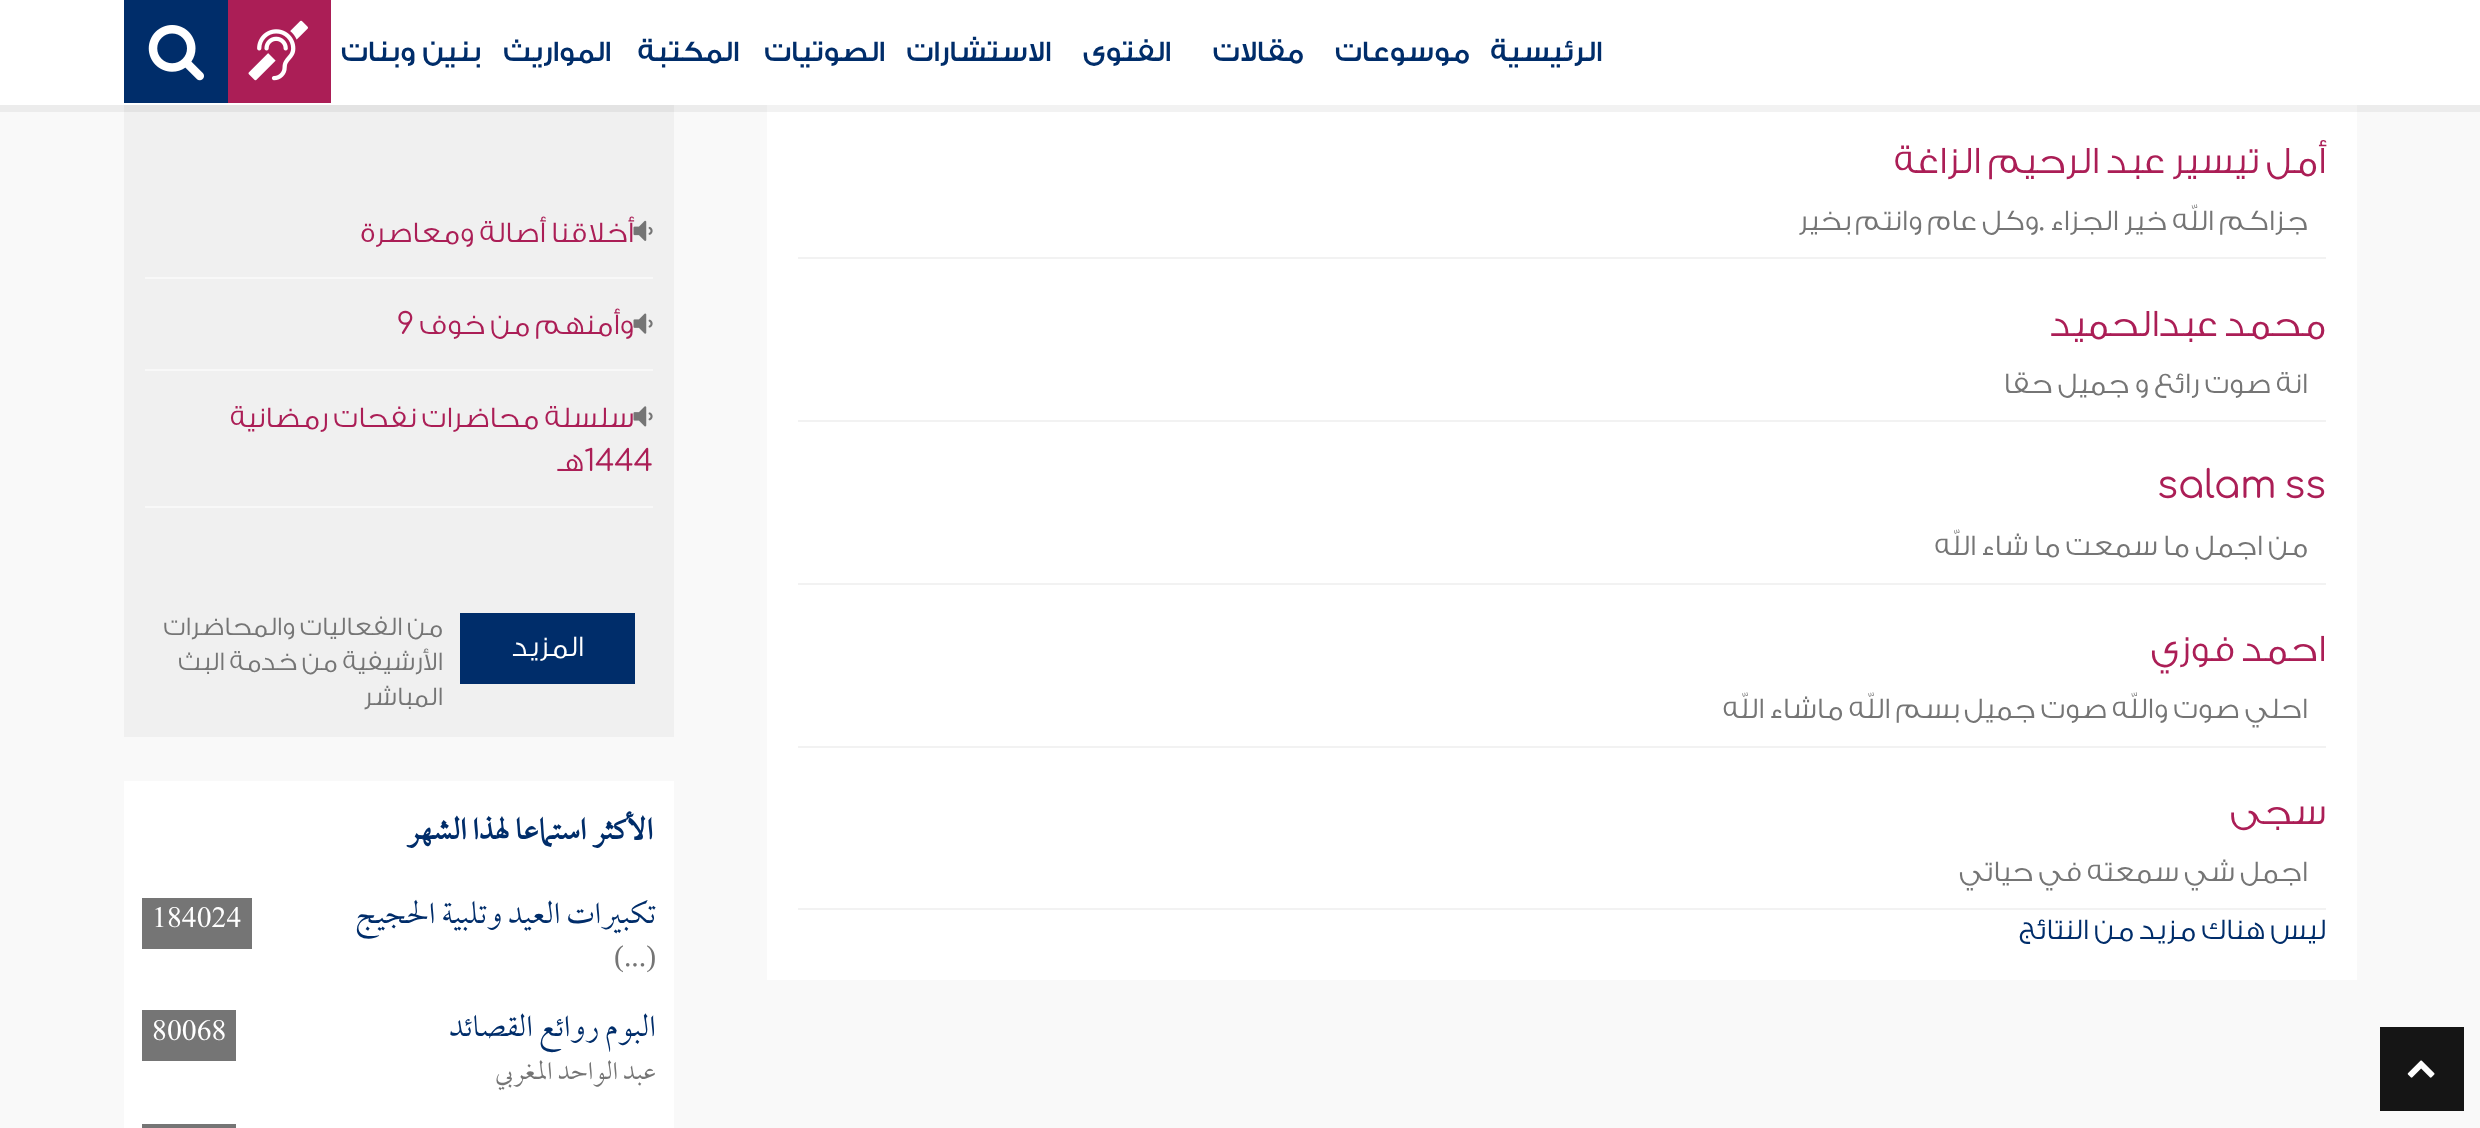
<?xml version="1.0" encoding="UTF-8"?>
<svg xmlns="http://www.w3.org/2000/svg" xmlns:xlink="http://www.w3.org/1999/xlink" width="2480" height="1128">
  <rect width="100%" height="100%" fill="#f9f9f9" />
  <rect x="767" y="105" width="1590" height="875" fill="#ffffff" />
  <rect x="124" y="105" width="550" height="632" fill="#f0f0f0" />
  <path d="M 0 105 v 7 h 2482 v -105 v 98 z" fill="#000000" fill-opacity="0.05" />
  <rect width="2480" height="105" fill="#ffffff" />
  <rect x="228" width="103" height="103" fill="#ab1e56" />
  <image x="248" y="20" width="60" height="61" xlink:href="image1.png" />
  <rect x="124" width="104" height="103" fill="#002d6a" />
  <image x="148" y="25" width="56" height="56" xlink:href="image2.png" />
  <rect x="2380" y="1027" width="84" height="84" fill="#151515" />
  <image x="2407" y="1060" width="28" height="18" xlink:href="image3.png" />
  <rect x="798" y="257" width="1528" height="2" fill="#f2f2f2" />
  <rect x="798" y="420" width="1528" height="2" fill="#f2f2f2" />
  <rect x="798" y="583" width="1528" height="2" fill="#f2f2f2" />
  <rect x="798" y="746" width="1528" height="2" fill="#f2f2f2" />
  <rect x="798" y="908" width="1528" height="2" fill="#f2f2f2" />
  <rect x="145" y="277" width="508" height="2" fill="#f8f8f8" />
  <image x="633" y="220" width="20" height="21" xlink:href="image4.png" />
  <rect x="145" y="369" width="508" height="2" fill="#f8f8f8" />
  <image x="633" y="313" width="20" height="21" xlink:href="image5.png" />
  <rect x="145" y="506" width="508" height="2" fill="#f8f8f8" />
  <image x="633" y="406" width="20" height="21" xlink:href="image6.png" />
  <rect x="460" y="613" width="175" height="71" fill="#002d6a" />
  <rect x="124" y="781" width="550" height="347" fill="#ffffff" />
  <rect x="142" y="898" width="110" height="51" fill="#757575" />
  <rect x="142" y="1010" width="94" height="51" fill="#757575" />
  <rect x="142" y="1124" width="94" height="4" fill="#757575" />
  <text x="1602" y="61" style="font-family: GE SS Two; font-size: 29.75px; font-weight: 500; direction: rtl; fill: #002d6a">الرئيسية</text>
  <text x="1470" y="61" style="font-family: GE SS Two; font-size: 29.75px; font-weight: 500; direction: rtl; fill: #002d6a">موسوعات</text>
  <text x="1304" y="61" style="font-family: GE SS Two; font-size: 29.75px; font-weight: 500; direction: rtl; fill: #002d6a">مقالات</text>
  <text x="1171" y="61" style="font-family: GE SS Two; font-size: 29.75px; font-weight: 500; direction: rtl; fill: #002d6a">الفتوى</text>
  <text x="1051" y="61" style="font-family: GE SS Two; font-size: 29.75px; font-weight: 500; direction: rtl; fill: #002d6a">الاستشارات</text>
  <text x="885" y="61" style="font-family: GE SS Two; font-size: 29.75px; font-weight: 500; direction: rtl; fill: #002d6a">الصوتيات</text>
  <text x="739" y="61" style="font-family: GE SS Two; font-size: 29.75px; font-weight: 500; direction: rtl; fill: #002d6a">المكتبة</text>
  <text x="611" y="61" style="font-family: GE SS Two; font-size: 29.75px; font-weight: 500; direction: rtl; fill: #002d6a">المواريث</text>
  <text x="481" y="61" style="font-family: GE SS Two; font-size: 29.75px; font-weight: 500; direction: rtl; fill: #002d6a">بنين وبنات</text>
  <text x="2326" y="173" style="font-family: GE SS Two; font-size: 38.75px; font-weight: 300; direction: rtl; fill: #ab1e56">أمل تيسير عبد الرحيم الزاغة</text>
  <text x="2308" y="230" style="font-family: GE SS Two; font-size: 29.75px; font-weight: 300; direction: rtl; fill: #757575">جزاكم الله خير الجزاء</text>
  <text x="2045" y="230" style="font-family: Comfortaa; font-size: 29.75px; direction: rtl; fill: #757575">.</text>
  <text x="2039" y="230" style="font-family: GE SS Two; font-size: 29.75px; font-weight: 300; direction: rtl; fill: #757575">وكل عام وانتم بخير</text>
  <text x="2326" y="336" style="font-family: GE SS Two; font-size: 38.75px; font-weight: 300; direction: rtl; fill: #ab1e56">محمد عبدالحميد</text>
  <text x="2308" y="393" style="font-family: GE SS Two; font-size: 29.75px; font-weight: 300; direction: rtl; fill: #757575">انة صوت رائع و جميل حقا</text>
  <text x="2157" y="498" word-spacing="-4" style="font-family: Comfortaa; font-size: 38.75px; fill: #ab1e56">salam ss</text>
  <text x="2308" y="555" style="font-family: GE SS Two; font-size: 29.75px; font-weight: 300; direction: rtl; fill: #757575">من اجمل ما سمعت ما شاء الله</text>
  <text x="2326" y="661" style="font-family: GE SS Two; font-size: 38.75px; font-weight: 300; direction: rtl; fill: #ab1e56">احمد فوزي</text>
  <text x="2308" y="718" style="font-family: GE SS Two; font-size: 29.75px; font-weight: 300; direction: rtl; fill: #757575">احلي صوت والله صوت جميل بسم الله ماشاء الله</text>
  <text x="2326" y="824" style="font-family: GE SS Two; font-size: 38.75px; font-weight: 300; direction: rtl; fill: #ab1e56">سجى</text>
  <text x="2308" y="881" style="font-family: GE SS Two; font-size: 29.75px; font-weight: 300; direction: rtl; fill: #757575">اجمل شي سمعته في حياتي</text>
  <text x="2326" y="939" style="font-family: GE SS Two; font-size: 29.75px; font-weight: 300; direction: rtl; fill: #002d6a">ليس هناك مزيد من النتائج</text>
  <text x="634" y="242" style="font-family: GE SS Two; font-size: 29.75px; font-weight: 300; direction: rtl; fill: #ab1e56">أخلاقنا أصالة ومعاصرة</text>
  <text x="634" y="334" style="font-family: GE SS Two; font-size: 29.75px; font-weight: 300; direction: rtl; fill: #ab1e56">وأمنهم من خوف</text>
  <text x="397" y="334" style="font-family: Comfortaa; font-size: 29.75px; fill: #ab1e56">9</text>
  <text x="634" y="427" style="font-family: GE SS Two; font-size: 29.75px; font-weight: 300; direction: rtl; fill: #ab1e56">سلسلة محاضرات نفحات رمضانية</text>
  <text x="584" y="471" style="font-family: Comfortaa; font-size: 29.75px; fill: #ab1e56">1444</text>
  <text x="584" y="471" style="font-family: GE SS Two; font-size: 29.75px; font-weight: 300; direction: rtl; fill: #ab1e56">هـ</text>
  <text x="584" y="656" style="font-family: GE SS Two; font-size: 29.75px; font-weight: 300; direction: rtl; fill: #ffffff">المزيد</text>
  <text x="443" y="635" style="font-family: GE SS Two; font-size: 26.75px; font-weight: 300; direction: rtl; fill: #757575">من الفعاليات والمحاضرات</text>
  <text x="443" y="670" style="font-family: GE SS Two; font-size: 26.75px; font-weight: 300; direction: rtl; fill: #757575">الأرشيفية من خدمة البث</text>
  <text x="443" y="705" style="font-family: GE SS Two; font-size: 26.75px; font-weight: 300; direction: rtl; fill: #757575">المباشر</text>
  <text x="653" y="839" style="font-family: 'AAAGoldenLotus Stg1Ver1'; font-size: 34.75px; font-weight: bold; direction: rtl; fill: #002d6a">الأكثر استماعا لهذا الشهر</text>
  <text x="656" y="923" style="font-family: 'AAAGoldenLotus Stg1Ver1'; font-size: 35.75px; font-weight: 300; direction: rtl; fill: #002d6a">تكبيرات العيد وتلبية الحجيج</text>
  <text x="152" y="927" style="font-family: 'AAAGoldenLotus Stg1Ver1'; font-size: 29.75px; font-weight: 300; fill: #ffffff">184024</text>
  <text x="614" y="966" style="font-family: Liberation Serif; font-size: 29.75px; fill: #757575">(...)</text>
  <text x="656" y="1036" style="font-family: 'AAAGoldenLotus Stg1Ver1'; font-size: 35.75px; font-weight: 300; direction: rtl; fill: #002d6a">البوم روائع القصائد</text>
  <text x="152" y="1040" style="font-family: 'AAAGoldenLotus Stg1Ver1'; font-size: 29.75px; font-weight: 300; fill: #ffffff">80068</text>
  <text x="656" y="1079" style="font-family: 'AAAGoldenLotus Stg1Ver1'; font-size: 29.75px; font-weight: 300; direction: rtl; fill: #757575">عبد الواحد المغربي</text>
</svg>
